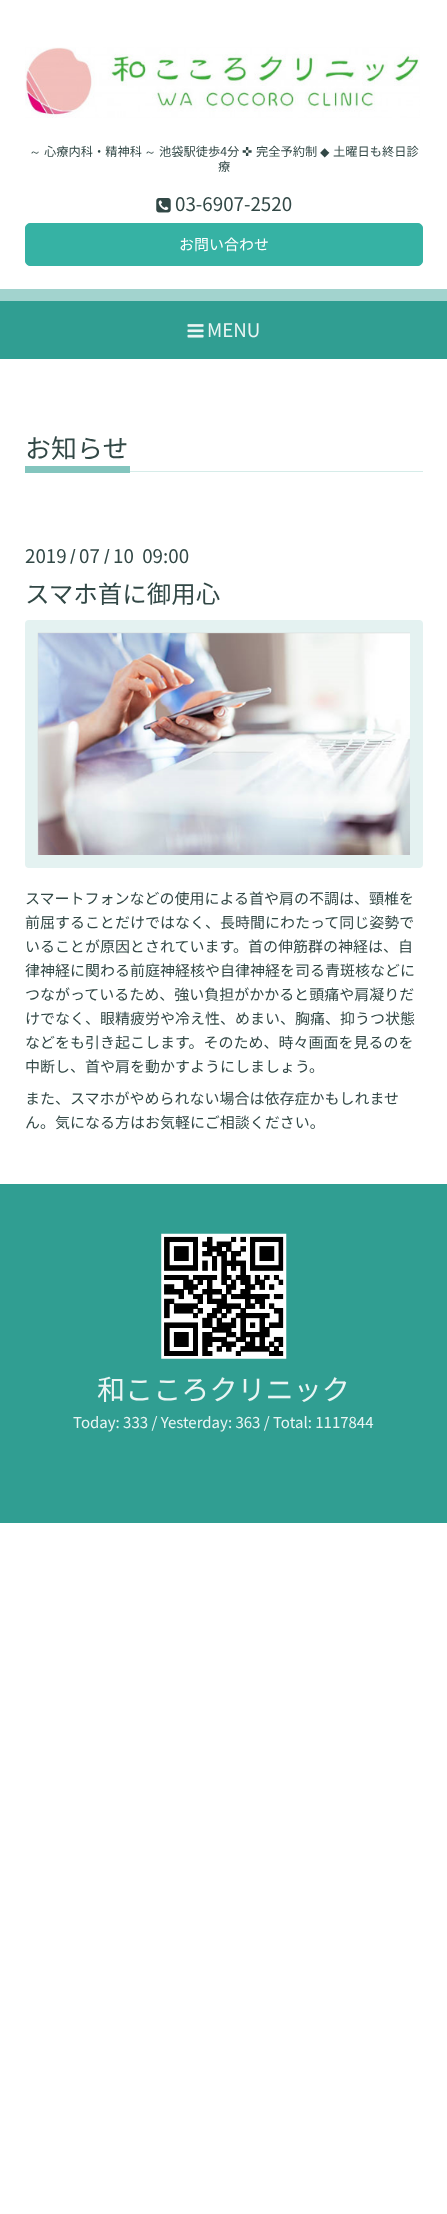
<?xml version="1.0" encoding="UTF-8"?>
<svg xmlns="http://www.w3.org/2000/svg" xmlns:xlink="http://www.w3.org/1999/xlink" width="447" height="2214">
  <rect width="100%" height="100%" fill="#ffffff" />
  <image x="25" y="47" width="395" height="71" xlink:href="image1.png" />
  <image x="156" y="198" width="15" height="15" xlink:href="image2.png" />
  <rect x="25.5" y="223.5" width="397" height="42" rx="4.5" fill="#36b2a4" stroke="#36b2a4" />
  <rect y="289" width="447" height="12" fill="#a2d3ce" />
  <rect y="301" width="447" height="58" fill="#309e92" />
  <image x="187" y="324" width="17" height="14" xlink:href="image3.png" />
  <rect x="130" y="471" width="293" height="1" fill="#d6ece9" />
  <rect x="25" y="466" width="105" height="7" fill="#83c5be" />
  <rect x="25" y="620" width="398" height="248" rx="4" fill="#e4f2f1" />
  <image x="37" y="632" width="373" height="223" xlink:href="image4.png" />
  <rect y="1184" width="447" height="339" fill="#309e92" />
  <image x="161" y="1233" width="126" height="126" xlink:href="image5.png" />
  <text x="29" y="156" style="font-family: WenQuanYi Zen Hei; font-size: 12.25px; font-weight: 500; fill: #324846">～</text>
  <text x="44" y="156" style="font-family: Noto Sans JP; font-size: 12.25px; fill: #324846">心療内科・精神科</text>
  <text x="144" y="156" style="font-family: WenQuanYi Zen Hei; font-size: 12.25px; font-weight: 500; fill: #324846">～</text>
  <text x="159" y="156" style="font-family: Noto Sans JP; font-size: 12.25px; fill: #324846">池袋駅徒歩4分</text>
  <text x="242" y="156" style="font-family: DejaVu Sans; font-size: 12.25px; fill: #324846">✜</text>
  <text x="256" y="156" style="font-family: Noto Sans JP; font-size: 12.25px; fill: #324846">完全予約制</text>
  <text x="320" y="156" style="font-family: DejaVu Sans; font-size: 12.25px; fill: #324846">◆</text>
  <text x="333" y="156" style="font-family: Noto Sans JP; font-size: 12.25px; fill: #324846">土曜日も終日診</text>
  <text x="218" y="171" style="font-family: Noto Sans JP; font-size: 12.25px; fill: #324846">療</text>
  <text x="175" y="211" style="font-family: Noto Sans JP; font-size: 18.75px; fill: #324846">03-6907-2520</text>
  <text x="179" y="250" style="font-family: Noto Sans JP; font-size: 15px; fill: #ffffff">お問い合わせ</text>
  <text x="207" y="337" style="font-family: Noto Sans JP; font-size: 18.75px; fill: #eaf5f4">MENU</text>
  <text x="25" y="458" style="font-family: Noto Sans JP; font-size: 26px; fill: #324846">お知らせ</text>
  <text x="25" y="563" style="font-family: Noto Sans JP; font-size: 18.75px; fill: #324846">2019</text>
  <text x="70" y="561" style="font-family: Noto Sans JP; font-size: 15px; font-weight: bold; fill: #324846">/</text>
  <text x="79" y="563" style="font-family: Noto Sans JP; font-size: 18.75px; fill: #324846">07</text>
  <text x="104" y="561" style="font-family: Noto Sans JP; font-size: 15px; font-weight: bold; fill: #324846">/</text>
  <text x="113" y="563" style="font-family: Noto Sans JP; font-size: 18.75px; fill: #324846" xml:space="preserve">10  09:00</text>
  <text x="25" y="603" style="font-family: Noto Sans JP; font-size: 24.5px; fill: #324846">スマホ首に御用心</text>
  <text x="25" y="904" style="font-family: Noto Sans JP; font-size: 15px; fill: #324846">スマートフォンなどの使用による首や肩の不調は、頸椎を</text>
  <text x="25" y="928" style="font-family: Noto Sans JP; font-size: 15px; fill: #324846">前屈することだけではなく、長時間にわたって同じ姿勢で</text>
  <text x="25" y="952" style="font-family: Noto Sans JP; font-size: 15px; fill: #324846">いることが原因とされています。首の伸筋群の神経は、自</text>
  <text x="25" y="976" style="font-family: Noto Sans JP; font-size: 15px; fill: #324846">律神経に関わる前庭神経核や自律神経を司る青斑核などに</text>
  <text x="25" y="1000" style="font-family: Noto Sans JP; font-size: 15px; fill: #324846">つながっているため、強い負担がかかると頭痛や肩凝りだ</text>
  <text x="25" y="1024" style="font-family: Noto Sans JP; font-size: 15px; fill: #324846">けでなく、眼精疲労や冷え性、めまい、胸痛、抑うつ状態</text>
  <text x="25" y="1048" style="font-family: Noto Sans JP; font-size: 15px; fill: #324846">などをも引き起こします。そのため、時々画面を見るのを</text>
  <text x="25" y="1072" style="font-family: Noto Sans JP; font-size: 15px; fill: #324846">中断し、首や肩を動かすようにしましょう。</text>
  <text x="25" y="1104" style="font-family: Noto Sans JP; font-size: 15px; fill: #324846">また、スマホがやめられない場合は依存症かもしれませ</text>
  <text x="25" y="1128" style="font-family: Noto Sans JP; font-size: 15px; fill: #324846">ん。気になる方はお気軽にご相談ください。</text>
  <text x="97" y="1400" style="font-family: Noto Sans JP; font-size: 28.1px; fill: #eaf5f4">和こころクリニック</text>
  <text x="73" y="1428" style="font-family: Noto Sans JP; font-size: 15px; fill: #eaf5f4">Today: 333 / Yesterday: 363 / Total: 1117844</text>
</svg>
